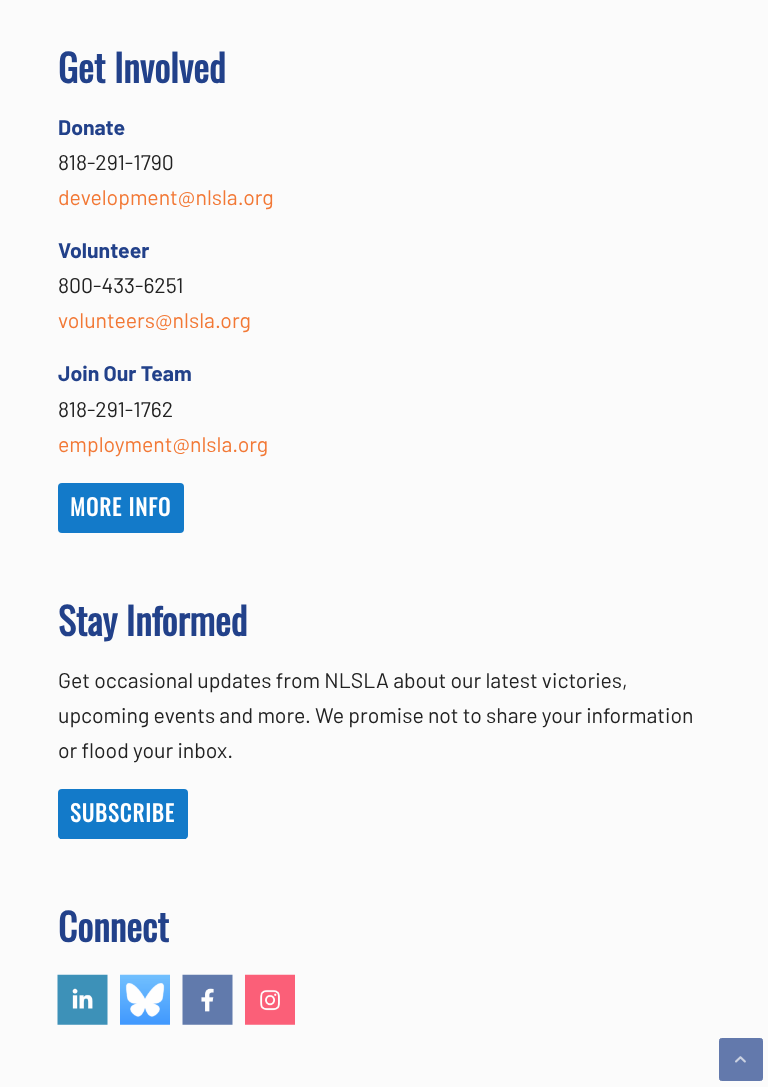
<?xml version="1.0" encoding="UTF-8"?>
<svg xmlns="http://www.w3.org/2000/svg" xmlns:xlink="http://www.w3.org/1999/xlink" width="768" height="1087">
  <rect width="100%" height="100%" fill="#fbfbfb" />
  <rect x="58" y="483" width="126" height="50" rx="4" fill="#137ac9" />
  <rect x="182" y="531" width="1" height="1" fill="#137ac9" />
  <rect x="58" y="789" width="130" height="50" rx="4" fill="#137ac9" />
  <rect x="60" y="838" width="126" height="1" fill="#137ac9" />
  <image x="57" y="974" width="51" height="51" xlink:href="image1.png" />
  <image x="120" y="974" width="50" height="51" xlink:href="image2.png" />
  <image x="182" y="974" width="51" height="51" xlink:href="image3.png" />
  <image x="245" y="974" width="50" height="51" xlink:href="image4.png" />
  <rect x="719.5" y="1038.5" width="43" height="42" rx="2" fill="#6379ac" stroke="#6379ac" />
  <image x="735" y="1056" width="11" height="7" xlink:href="image5.png" />
  <text x="58" y="83" style="font-family: Oswald; font-size: 37.5px; font-weight: bold; fill: #22418a">Get Involved</text>
  <text x="58" y="135" style="font-family: Barlow; font-size: 21.25px; font-weight: bold; fill: #22418a">Donate</text>
  <text x="58" y="170" style="font-family: Barlow; font-size: 21.25px; fill: #222222">818-291-1790</text>
  <text x="58" y="205" style="font-family: Barlow; font-size: 21.25px; fill: #f27835">development@nlsla.org</text>
  <text x="58" y="258" style="font-family: Barlow; font-size: 21.25px; font-weight: bold; fill: #22418a">Volunteer</text>
  <text x="58" y="293" style="font-family: Barlow; font-size: 21.25px; fill: #222222">800-433-6251</text>
  <text x="58" y="328" style="font-family: Barlow; font-size: 21.25px; fill: #f27835">volunteers@nlsla.org</text>
  <text x="58" y="381" style="font-family: Barlow; font-size: 21.25px; font-weight: bold; fill: #22418a">Join Our Team</text>
  <text x="58" y="417" style="font-family: Barlow; font-size: 21.25px; fill: #222222">818-291-1762</text>
  <text x="58" y="452" style="font-family: Barlow; font-size: 21.25px; fill: #f27835">employment@nlsla.org</text>
  <text x="70" y="516" style="font-family: Oswald; font-size: 22.5px; font-weight: bold; letter-spacing: 1.1px; fill: #ffffff">MORE INFO</text>
  <text x="58" y="636" style="font-family: Oswald; font-size: 37.5px; font-weight: bold; fill: #22418a">Stay Informed</text>
  <text x="58" y="688" style="font-family: Barlow; font-size: 21.25px; fill: #222222">Get occasional updates from NLSLA about our latest victories,</text>
  <text x="58" y="723" style="font-family: Barlow; font-size: 21.25px; fill: #222222">upcoming events and more. We promise not to share your information</text>
  <text x="58" y="758" style="font-family: Barlow; font-size: 21.25px; fill: #222222">or flood your inbox.</text>
  <text x="70" y="822" style="font-family: Oswald; font-size: 22.5px; font-weight: bold; letter-spacing: 1.1px; fill: #ffffff">SUBSCRIBE</text>
  <text x="58" y="942" style="font-family: Oswald; font-size: 37.5px; font-weight: bold; fill: #22418a">Connect</text>
</svg>
